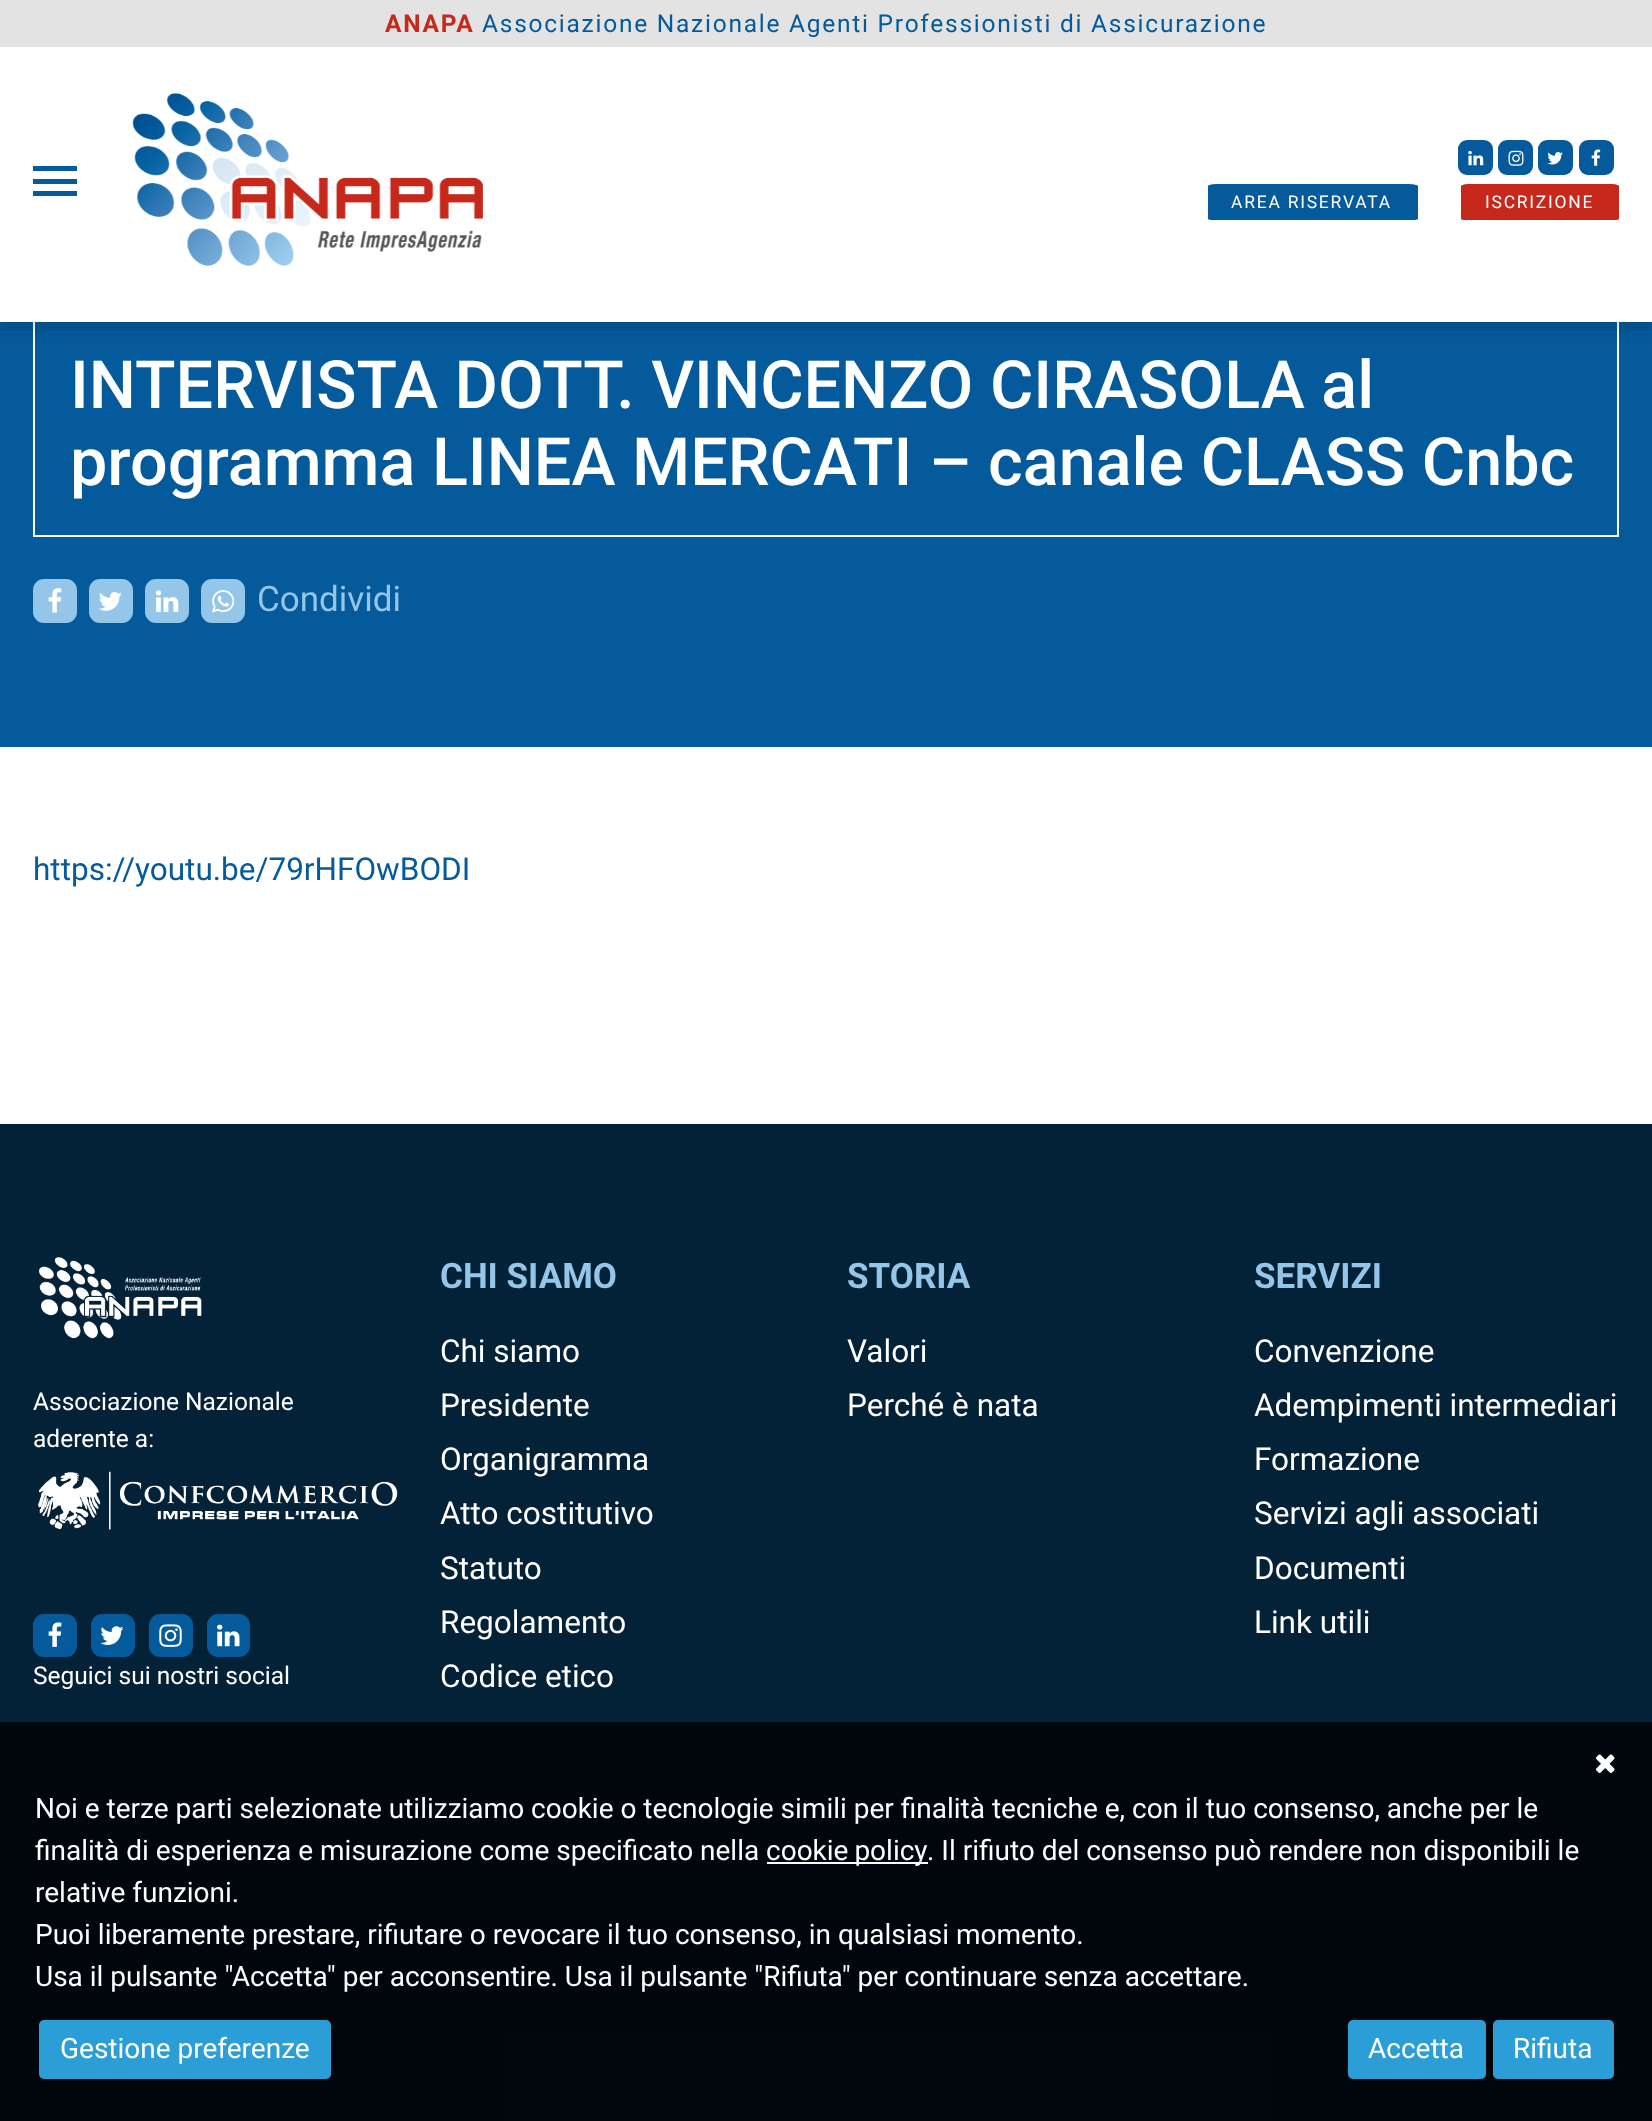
<?xml version="1.0" encoding="UTF-8"?>
<svg xmlns="http://www.w3.org/2000/svg" xmlns:xlink="http://www.w3.org/1999/xlink" width="1652" height="2121">
  <rect width="100%" height="100%" fill="#ffffff" />
  <rect y="322" width="1652" height="425" fill="#045a9b" />
  <rect x="34" y="246" width="1584" height="290" fill="none" stroke="#ffffff" stroke-width="2" />
  <rect y="9" width="1652" height="322" fill="#000000" fill-opacity="0.1" filter="blur(4.5px)" />
  <rect y="47" width="1652" height="275" fill="#ffffff" />
  <rect width="1652" height="47" fill="#e3e3e3" />
  <rect x="33" y="166" width="44" height="5" fill="#045a9b" />
  <rect x="33" y="179" width="44" height="5" fill="#045a9b" />
  <rect x="33" y="191" width="44" height="5" fill="#045a9b" />
  <image x="132" y="93" width="351" height="173" xlink:href="image1.png" />
  <rect x="1458" y="140" width="35" height="35" rx="9" fill="#045a9b" />
  <image x="1468" y="151" width="16" height="15" xlink:href="image2.png" />
  <rect x="1498" y="140" width="35" height="35" rx="9" fill="#045a9b" />
  <image x="1508" y="150" width="16" height="16" xlink:href="image3.png" />
  <rect x="1538" y="140" width="35" height="35" rx="9" fill="#045a9b" />
  <image x="1547" y="152" width="16" height="13" xlink:href="image4.png" />
  <rect x="1579" y="140" width="35" height="35" rx="9" fill="#045a9b" />
  <image x="1591" y="149" width="10" height="17" xlink:href="image5.png" />
  <path d="M 1218 184 h 189 c 6 0 11 1 11 2 v 33 c 0 1 -5 1 -11 1 h -189 c -6 0 -10 0 -10 -1 v -33 c 0 -1 4 -2 10 -2 z" fill="#045a9b" />
  <path d="M 1469 184 h 142 c 4 0 8 1 8 2 v 33 c 0 1 -4 1 -8 1 h -142 c -4 0 -8 0 -8 -1 v -33 c 0 -1 4 -2 8 -2 z" fill="#c6291b" />
  <rect x="33" y="579" width="44" height="44" rx="11" fill="#94c6e9" />
  <image x="48" y="588" width="14" height="25" xlink:href="image6.png" />
  <rect x="89" y="579" width="44" height="44" rx="11" fill="#94c6e9" />
  <image x="99" y="592" width="23" height="19" xlink:href="image7.png" />
  <rect x="145" y="579" width="44" height="44" rx="11" fill="#94c6e9" />
  <image x="155" y="590" width="24" height="22" xlink:href="image8.png" />
  <rect x="201" y="579" width="44" height="44" rx="11" fill="#94c6e9" />
  <image x="211" y="590" width="24" height="23" xlink:href="image9.png" />
  <rect y="1124" width="1652" height="997" fill="#032137" />
  <image x="39" y="1257" width="163" height="82" xlink:href="image10.png" />
  <image x="38" y="1471" width="360" height="59" xlink:href="image11.png" />
  <rect x="33" y="1614" width="44" height="43" rx="11" fill="#045a9b" />
  <image x="48" y="1622" width="14" height="25" xlink:href="image12.png" />
  <rect x="91" y="1614" width="44" height="43" rx="11" fill="#045a9b" />
  <image x="100" y="1626" width="24" height="19" xlink:href="image13.png" />
  <rect x="149" y="1614" width="44" height="43" rx="11" fill="#045a9b" />
  <image x="159" y="1624" width="23" height="23" xlink:href="image14.png" />
  <rect x="207" y="1614" width="43" height="43" rx="11" fill="#045a9b" />
  <image x="217" y="1624" width="23" height="23" xlink:href="image15.png" />
  <rect y="1722" width="1652" height="399" fill="#000000" fill-opacity="0.8" />
  <image x="1596" y="1754" width="19" height="19" xlink:href="image16.png" />
  <rect x="767" y="1862" width="161" height="2" fill="#ffffff" />
  <rect x="39" y="2020" width="292" height="59" rx="5" fill="#2b9ed7" />
  <rect x="1348" y="2020" width="138" height="59" rx="5" fill="#2b9ed7" />
  <rect x="1493" y="2020" width="121" height="59" rx="5" fill="#2b9ed7" />
  <text x="385" y="32" style="font-family: Roboto; font-size: 24.5px; font-weight: bold; letter-spacing: 1.75px; fill: #c6291b">ANAPA</text>
  <text x="482" y="32" style="font-family: Roboto; font-size: 24.5px; letter-spacing: 1.75px; fill: #045a9b">Associazione Nazionale Agenti Professionisti di Assicurazione</text>
  <text x="1231" y="208" style="font-family: Roboto; font-size: 17.5px; letter-spacing: 1.75px; fill: #ffffff">AREA RISERVATA</text>
  <text x="1485" y="208" style="font-family: Roboto; font-size: 17.5px; letter-spacing: 1.75px; fill: #ffffff">ISCRIZIONE</text>
  <text x="70" y="408" style="font-family: Roboto; font-size: 66.5px; font-weight: 500; fill: #ffffff">INTERVISTA DOTT. VINCENZO CIRASOLA al</text>
  <text x="70" y="485" style="font-family: Roboto; font-size: 66.5px; font-weight: 500; fill: #ffffff">programma LINEA MERCATI – canale CLASS Cnbc</text>
  <text x="257" y="611" style="font-family: Roboto; font-size: 35px; fill: #94c6e9">Condividi</text>
  <text x="33" y="880" style="font-family: Roboto; font-size: 31.5px; fill: #045a9b">https://youtu.be/79rHFOwBODI</text>
  <text x="33" y="1410" style="font-family: Roboto; font-size: 24.5px; fill: #ffffff">Associazione Nazionale</text>
  <text x="33" y="1447" style="font-family: Roboto; font-size: 24.5px; fill: #ffffff">aderente a:</text>
  <text x="33" y="1684" style="font-family: Roboto; font-size: 24.5px; fill: #ffffff">Seguici sui nostri social</text>
  <text x="440" y="1288" style="font-family: Roboto; font-size: 35px; font-weight: bold; fill: #94c6e9">CHI SIAMO</text>
  <text x="440" y="1362" style="font-family: Roboto; font-size: 31.5px; fill: #ffffff">Chi siamo</text>
  <text x="440" y="1416" style="font-family: Roboto; font-size: 31.5px; fill: #ffffff">Presidente</text>
  <text x="440" y="1470" style="font-family: Roboto; font-size: 31.5px; fill: #ffffff">Organigramma</text>
  <text x="440" y="1524" style="font-family: Roboto; font-size: 31.5px; fill: #ffffff">Atto costitutivo</text>
  <text x="440" y="1579" style="font-family: Roboto; font-size: 31.5px; fill: #ffffff">Statuto</text>
  <text x="440" y="1633" style="font-family: Roboto; font-size: 31.5px; fill: #ffffff">Regolamento</text>
  <text x="440" y="1687" style="font-family: Roboto; font-size: 31.5px; fill: #ffffff">Codice etico</text>
  <text x="847" y="1288" style="font-family: Roboto; font-size: 35px; font-weight: bold; fill: #94c6e9">STORIA</text>
  <text x="847" y="1362" style="font-family: Roboto; font-size: 31.5px; fill: #ffffff">Valori</text>
  <text x="847" y="1416" style="font-family: Roboto; font-size: 31.5px; fill: #ffffff">Perché è nata</text>
  <text x="1254" y="1288" style="font-family: Roboto; font-size: 35px; font-weight: bold; fill: #94c6e9">SERVIZI</text>
  <text x="1254" y="1362" style="font-family: Roboto; font-size: 31.5px; fill: #ffffff">Convenzione</text>
  <text x="1254" y="1416" style="font-family: Roboto; font-size: 31.5px; fill: #ffffff">Adempimenti intermediari</text>
  <text x="1254" y="1470" style="font-family: Roboto; font-size: 31.5px; fill: #ffffff">Formazione</text>
  <text x="1254" y="1524" style="font-family: Roboto; font-size: 31.5px; fill: #ffffff">Servizi agli associati</text>
  <text x="1254" y="1579" style="font-family: Roboto; font-size: 31.5px; fill: #ffffff">Documenti</text>
  <text x="1254" y="1633" style="font-family: Roboto; font-size: 31.5px; fill: #ffffff">Link utili</text>
  <text x="35" y="1818" style="font-family: Roboto; font-size: 28px; fill: #ffffff">Noi e terze parti selezionate utilizziamo cookie o tecnologie simili per finalità tecniche e, con il tuo consenso, anche per le</text>
  <text x="35" y="1860" style="font-family: Roboto; font-size: 28px; fill: #ffffff">finalità di esperienza e misurazione come specificato nella</text>
  <text x="766" y="1860" word-spacing="-1" style="font-family: Roboto; font-size: 28px; fill: #ffffff">cookie policy</text>
  <text x="927" y="1860" style="font-family: Roboto; font-size: 28px; fill: #ffffff">. Il rifiuto del consenso può rendere non disponibili le</text>
  <text x="35" y="1902" style="font-family: Roboto; font-size: 28px; fill: #ffffff">relative funzioni.</text>
  <text x="35" y="1944" style="font-family: Roboto; font-size: 28px; fill: #ffffff">Puoi liberamente prestare, rifiutare o revocare il tuo consenso, in qualsiasi momento.</text>
  <text x="35" y="1986" style="font-family: Roboto; font-size: 28px; fill: #ffffff">Usa il pulsante "Accetta" per acconsentire. Usa il pulsante "Rifiuta" per continuare senza accettare.</text>
  <text x="60" y="2058" style="font-family: Roboto; font-size: 28px; fill: #ffffff">Gestione preferenze</text>
  <text x="1368" y="2058" style="font-family: Roboto; font-size: 28px; fill: #ffffff">Accetta</text>
  <text x="1513" y="2058" style="font-family: Roboto; font-size: 28px; fill: #ffffff">Rifiuta</text>
</svg>
